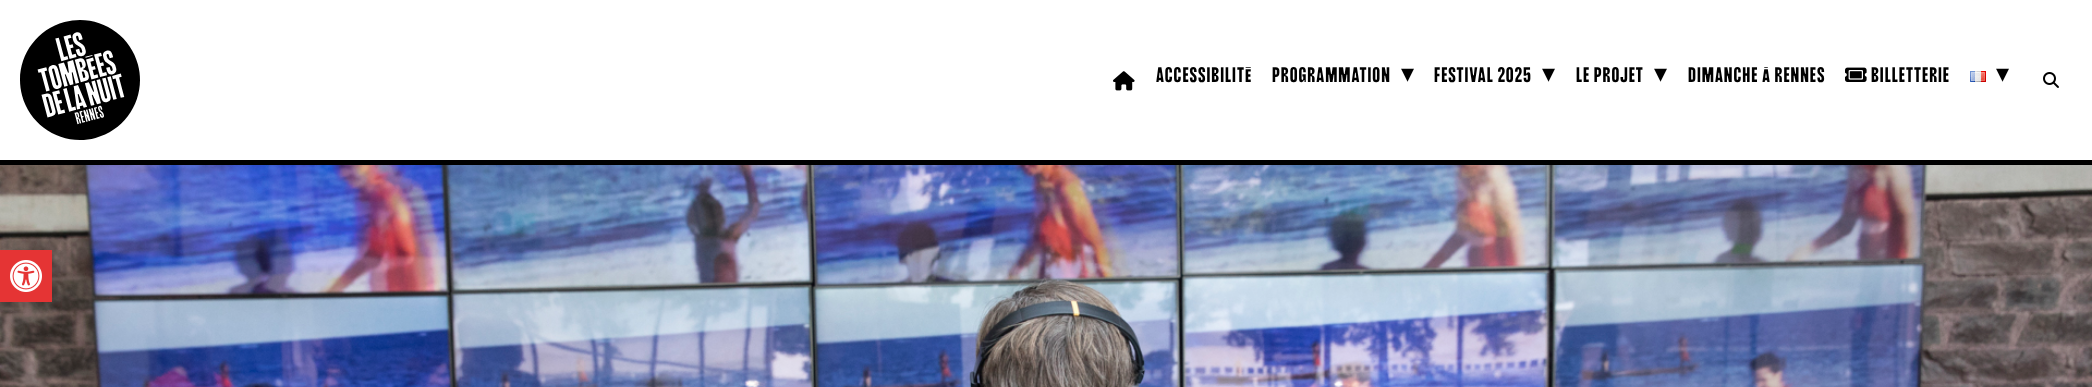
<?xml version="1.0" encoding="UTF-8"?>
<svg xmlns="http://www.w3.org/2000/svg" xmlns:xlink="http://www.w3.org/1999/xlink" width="2092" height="387">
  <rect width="100%" height="100%" fill="#ffffff" />
  <image x="20" y="20" width="120" height="120" xlink:href="image1.png" />
  <image x="1113" y="71" width="22" height="20" xlink:href="image2.png" />
  <image x="1845" y="67" width="22" height="15" xlink:href="image3.png" />
  <image x="1970" y="71" width="16" height="11" xlink:href="image4.png" />
  <image x="2043" y="72" width="16" height="16" xlink:href="image5.png" />
  <rect y="160" width="2092" height="5" fill="#000000" />
  <image x="0" y="165" width="2092" height="222" xlink:href="image6.png" />
  <rect y="250" width="52" height="52" fill="#000000" fill-opacity="0.1" filter="blur(5px)" />
  <rect y="250" width="52" height="52" fill="#e53434" />
  <image x="10" y="260" width="32" height="32" xlink:href="image7.png" />
  <text x="1156" y="82" style="font-family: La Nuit; font-size: 32px; font-weight: 100; letter-spacing: 1px; fill: #000000">ACCESSIBILITÉ</text>
  <text x="1272" y="82" style="font-family: La Nuit; font-size: 32px; font-weight: 100; letter-spacing: 1px; fill: #000000">PROGRAMMATION</text>
  <text x="1401" y="82" style="font-family: DejaVu Sans; font-size: 26px; letter-spacing: 1px; fill: #000000">▾</text>
  <text x="1434" y="82" style="font-family: La Nuit; font-size: 32px; font-weight: 100; letter-spacing: 1px; fill: #000000">FESTIVAL 2025</text>
  <text x="1542" y="82" style="font-family: DejaVu Sans; font-size: 26px; letter-spacing: 1px; fill: #000000">▾</text>
  <text x="1576" y="82" style="font-family: La Nuit; font-size: 32px; font-weight: 100; letter-spacing: 1px; fill: #000000">LE PROJET</text>
  <text x="1654" y="82" style="font-family: DejaVu Sans; font-size: 26px; letter-spacing: 1px; fill: #000000">▾</text>
  <text x="1688" y="82" style="font-family: La Nuit; font-size: 32px; font-weight: 100; letter-spacing: 1px; fill: #000000">DIMANCHE À RENNES</text>
  <text x="1871" y="82" style="font-family: La Nuit; font-size: 32px; font-weight: 100; letter-spacing: 1px; fill: #000000">BILLETTERIE</text>
  <text x="1996" y="82" style="font-family: DejaVu Sans; font-size: 26px; letter-spacing: 1px; fill: #000000">▾</text>
</svg>
